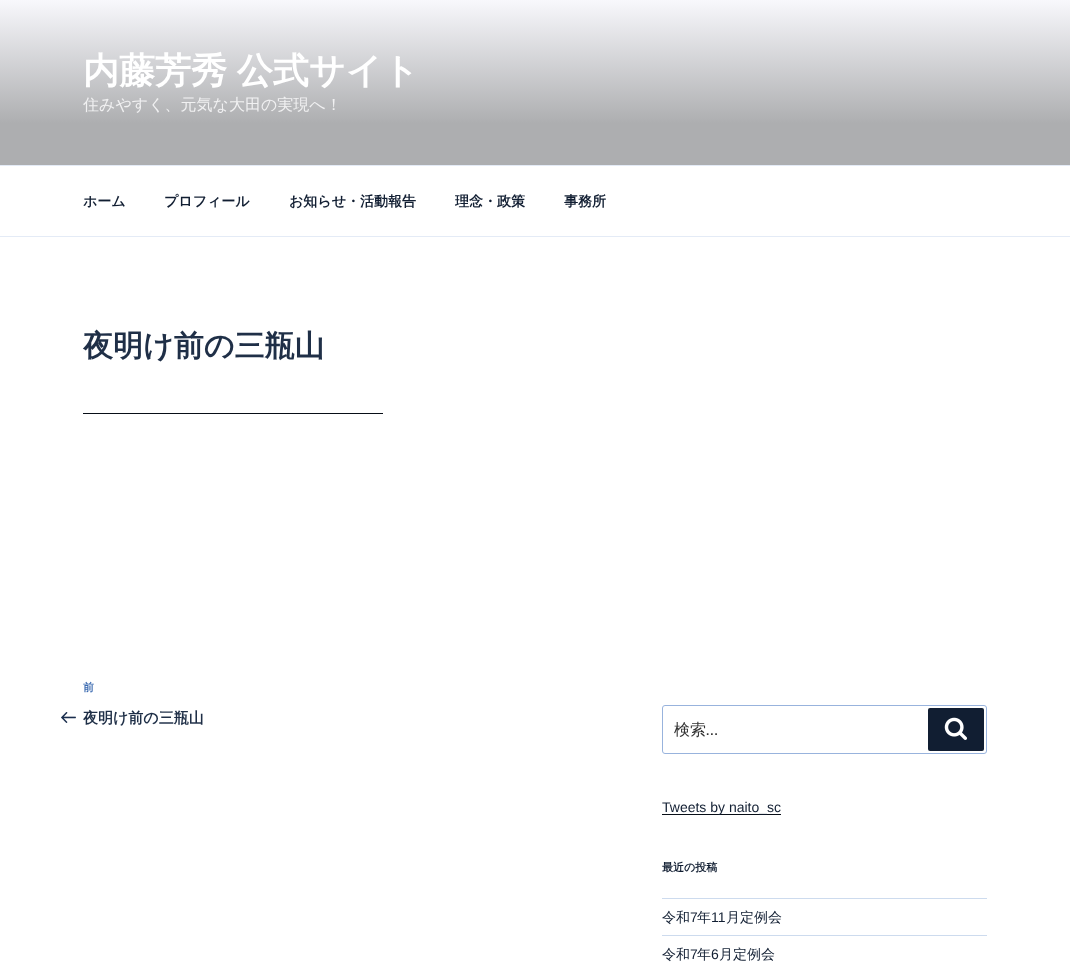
<?xml version="1.0" encoding="UTF-8"?>
<svg xmlns="http://www.w3.org/2000/svg" xmlns:xlink="http://www.w3.org/1999/xlink" width="1070" height="966">
  <defs>
    <linearGradient id="g1" gradientUnits="userSpaceOnUse" x1="535" y1="0" x2="535" y2="165"><stop offset="0" stop-color="#f8f8fc" /><stop offset="0.75" stop-color="#adaeb0" /><stop offset="1" stop-color="#adaeb0" /></linearGradient>
  </defs>
  <rect width="100%" height="100%" fill="#ffffff" />
  <rect width="1070" height="165" fill="url(#g1)" />
  <rect y="165" width="1070" height="1" fill="#e4ebf6" />
  <rect y="236" width="1070" height="1" fill="#e4ebf6" />
  <rect x="83" y="413" width="300" height="1" fill="#080e17" />
  <image x="61" y="712" width="15" height="11" xlink:href="image1.png" />
  <rect x="662.5" y="705.5" width="324" height="48" rx="2.5" fill="none" stroke="#98b3dd" />
  <rect x="928" y="708" width="56" height="43" rx="2" fill="#111e32" />
  <image x="944" y="717" width="23" height="23" xlink:href="image2.png" />
  <rect x="662" y="814" width="119" height="1" fill="#080e17" />
  <rect x="662" y="898" width="325" height="1" fill="#cddbee" />
  <rect x="662" y="935" width="325" height="1" fill="#cddbee" />
  <text x="83" y="83" word-spacing="-1" style="font-family: WenQuanYi Zen Hei; font-size: 36px; font-weight: bold; fill: #ffffff">内藤芳秀 公式サイト</text>
  <text x="83" y="110" style="font-family: WenQuanYi Zen Hei; font-size: 16px; font-weight: 500; fill: #f1f1f2">住みやすく、元気な大田の実現へ！</text>
  <text x="83" y="206" style="font-family: WenQuanYi Zen Hei; font-size: 14px; font-weight: bold; fill: #111e32">ホーム</text>
  <text x="164" y="206" style="font-family: WenQuanYi Zen Hei; font-size: 14px; font-weight: bold; fill: #111e32">プロフィール</text>
  <text x="289" y="206" style="font-family: WenQuanYi Zen Hei; font-size: 14px; font-weight: bold; fill: #111e32">お知らせ・活動報告</text>
  <text x="455" y="206" style="font-family: WenQuanYi Zen Hei; font-size: 14px; font-weight: bold; fill: #111e32">理念・政策</text>
  <text x="564" y="206" style="font-family: WenQuanYi Zen Hei; font-size: 14px; font-weight: bold; fill: #111e32">事務所</text>
  <text x="83" y="356" style="font-family: WenQuanYi Zen Hei; font-size: 30px; font-weight: bold; fill: #1f2f47">夜明け前の三瓶山</text>
  <text x="83" y="691" style="font-family: WenQuanYi Zen Hei; font-size: 11px; font-weight: bold; fill: #3b6ab0">前</text>
  <text x="83" y="723" style="font-family: WenQuanYi Zen Hei; font-size: 15px; font-weight: bold; fill: #1f2f47">夜明け前の三瓶山</text>
  <text x="674" y="735" style="font-family: WenQuanYi Zen Hei; font-size: 16px; font-weight: 500; fill: #333333">検索</text>
  <text x="706" y="735" style="font-family: Libre Franklin; font-size: 16px; fill: #333333">…</text>
  <text x="662" y="812" style="font-family: Liberation Sans; font-size: 14px; fill: #111e32">Tweets by naito_sc</text>
  <text x="662" y="871" style="font-family: WenQuanYi Zen Hei; font-size: 11px; font-weight: bold; fill: #111e32">最近の投稿</text>
  <text x="662" y="922" style="font-family: WenQuanYi Zen Hei; font-size: 14px; font-weight: 500; fill: #111e32">令和</text>
  <text x="690" y="922" style="font-family: Liberation Sans; font-size: 14px; fill: #111e32">7</text>
  <text x="697" y="922" style="font-family: WenQuanYi Zen Hei; font-size: 14px; font-weight: 500; fill: #111e32">年</text>
  <text x="711" y="922" style="font-family: Liberation Sans; font-size: 14px; fill: #111e32">11</text>
  <text x="726" y="922" style="font-family: WenQuanYi Zen Hei; font-size: 14px; font-weight: 500; fill: #111e32">月定例会</text>
  <text x="662" y="959" style="font-family: WenQuanYi Zen Hei; font-size: 14px; font-weight: 500; fill: #111e32">令和</text>
  <text x="690" y="959" style="font-family: Liberation Sans; font-size: 14px; fill: #111e32">7</text>
  <text x="697" y="959" style="font-family: WenQuanYi Zen Hei; font-size: 14px; font-weight: 500; fill: #111e32">年</text>
  <text x="711" y="959" style="font-family: Liberation Sans; font-size: 14px; fill: #111e32">6</text>
  <text x="719" y="959" style="font-family: WenQuanYi Zen Hei; font-size: 14px; font-weight: 500; fill: #111e32">月定例会</text>
</svg>
